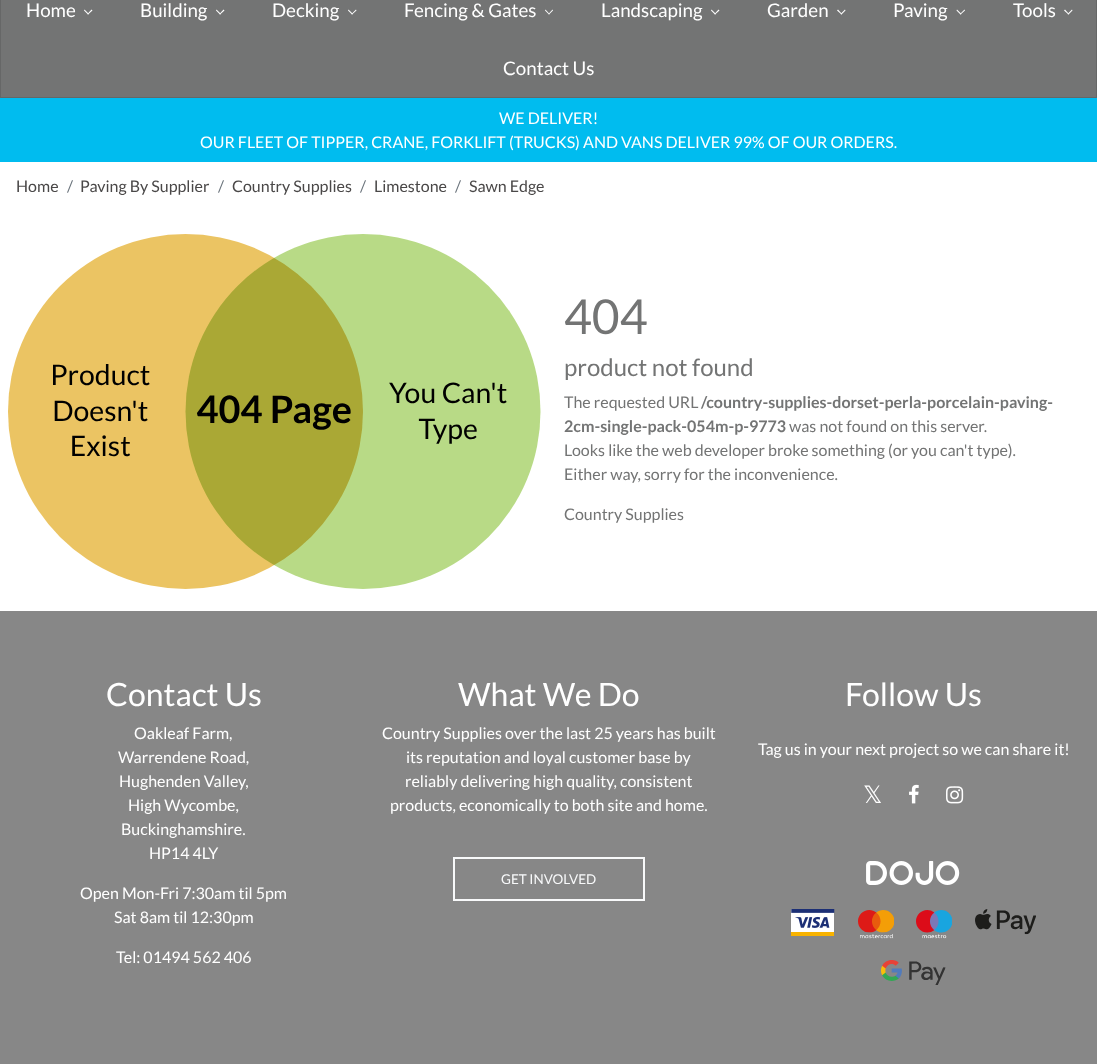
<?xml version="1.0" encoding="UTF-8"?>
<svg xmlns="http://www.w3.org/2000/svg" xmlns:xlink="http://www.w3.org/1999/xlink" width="1097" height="1064">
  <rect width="100%" height="100%" fill="#ffffff" />
  <rect x="0.5" y="-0.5" width="1096" height="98" fill="#737474" stroke="#666767" />
  <path d="M 91.5 9.5 l 1 1 l -4.5 4 l -0.5 -0.5 z" fill="#ffffff" />
  <path d="M 84.5 9.5 l 4.5 4.5 l -1 0.5 l -4 -4 z" fill="#ffffff" />
  <path d="M 223.5 9.5 l 1 1 l -4.5 4 l -0.5 -0.5 z" fill="#ffffff" />
  <path d="M 216.5 9.5 l 4.5 4.5 l -1 0.5 l -4 -4 z" fill="#ffffff" />
  <path d="M 356 9.5 l 0.5 1 l -4.5 4 l -0.5 -0.5 z" fill="#ffffff" />
  <path d="M 348.5 9.5 l 4.5 4.5 l -1 0.5 l -4 -4 z" fill="#ffffff" />
  <path d="M 552.5 9.5 l 0.5 1 l -4 4 l -0.5 -0.5 z" fill="#ffffff" />
  <path d="M 545.5 9.5 l 4 4.5 l -0.5 0.5 l -4 -4 z" fill="#ffffff" />
  <path d="M 718.5 9.5 l 1 1 l -4.5 4 l -0.5 -0.5 z" fill="#ffffff" />
  <path d="M 711.5 9.5 l 4.5 4.5 l -1 0.5 l -4 -4 z" fill="#ffffff" />
  <path d="M 845 9.5 l 0.5 1 l -4 4 l -1 -0.5 z" fill="#ffffff" />
  <path d="M 838 9.5 l 4 4.5 l -0.5 0.5 l -4.5 -4 z" fill="#ffffff" />
  <path d="M 964.5 9.5 l 0.5 1 l -4.5 4 l -0.5 -0.5 z" fill="#ffffff" />
  <path d="M 957 9.5 l 4.5 4.5 l -1 0.5 l -4 -4 z" fill="#ffffff" />
  <path d="M 1072 9.5 l 0.5 1 l -4 4 l -1 -0.5 z" fill="#ffffff" />
  <path d="M 1065 9.5 l 4 4.5 l -0.5 0.5 l -4.5 -4 z" fill="#ffffff" />
  <rect y="98" width="1097" height="64" fill="#00bcef" />
  <image x="8" y="234" width="533" height="355" xlink:href="image1.png" />
  <rect y="611" width="1097" height="453" fill="#878787" />
  <rect x="454" y="858" width="190" height="42" fill="none" stroke="#f8f9fa" stroke-width="2" />
  <image x="909" y="784" width="10" height="20" xlink:href="image2.png" />
  <image x="946" y="786" width="18" height="18" xlink:href="image3.png" />
  <image x="866" y="861" width="94" height="24" xlink:href="image4.png" />
  <image x="791" y="909" width="44" height="27" xlink:href="image5.png" />
  <image x="858" y="910" width="36" height="29" xlink:href="image6.png" />
  <image x="916" y="910" width="36" height="29" xlink:href="image7.png" />
  <image x="975" y="909" width="61" height="26" xlink:href="image8.png" />
  <image x="881" y="960" width="65" height="25" xlink:href="image9.png" />
  <text x="26" y="17" style="font-family: Lato; font-size: 18.75px; fill: #ffffff">Home</text>
  <text x="140" y="17" style="font-family: Lato; font-size: 18.75px; fill: #ffffff">Building</text>
  <text x="272" y="17" style="font-family: Lato; font-size: 18.75px; fill: #ffffff">Decking</text>
  <text x="404" y="17" style="font-family: Lato; font-size: 18.75px; fill: #ffffff">Fencing &amp; Gates</text>
  <text x="601" y="17" style="font-family: Lato; font-size: 18.75px; fill: #ffffff">Landscaping</text>
  <text x="767" y="17" style="font-family: Lato; font-size: 18.75px; fill: #ffffff">Garden</text>
  <text x="893" y="17" style="font-family: Lato; font-size: 18.75px; fill: #ffffff">Paving</text>
  <text x="1013" y="17" style="font-family: Lato; font-size: 18.75px; fill: #ffffff">Tools</text>
  <text x="503" y="75" style="font-family: Lato; font-size: 18.75px; fill: #ffffff">Contact Us</text>
  <text x="499" y="124" style="font-family: Lato; font-size: 16px; fill: #ffffff">WE DELIVER!</text>
  <text x="200" y="148" style="font-family: Lato; font-size: 16px; fill: #ffffff">OUR FLEET OF TIPPER, CRANE, FORKLIFT (TRUCKS) AND VANS DELIVER 99% OF OUR ORDERS.</text>
  <text x="16" y="192" style="font-family: Lato; font-size: 16px; fill: #4a4848">Home</text>
  <text x="67" y="192" style="font-family: Lato; font-size: 16px; fill: #6c757d">/</text>
  <text x="80" y="192" style="font-family: Lato; font-size: 16px; fill: #4a4848">Paving By Supplier</text>
  <text x="218" y="192" style="font-family: Lato; font-size: 16px; fill: #6c757d">/</text>
  <text x="232" y="192" style="font-family: Lato; font-size: 16px; fill: #4a4848">Country Supplies</text>
  <text x="360" y="192" style="font-family: Lato; font-size: 16px; fill: #6c757d">/</text>
  <text x="374" y="192" style="font-family: Lato; font-size: 16px; fill: #4a4848">Limestone</text>
  <text x="455" y="192" style="font-family: Lato; font-size: 16px; fill: #6c757d">/</text>
  <text x="469" y="192" style="font-family: Lato; font-size: 16px; fill: #4a4848">Sawn Edge</text>
  <text x="564" y="334" style="font-family: Lato; font-size: 48px; fill: #737474">404</text>
  <text x="564" y="376" style="font-family: Lato; font-size: 24px; fill: #737474">product not found</text>
  <text x="564" y="408" style="font-family: Lato; font-size: 16px; fill: #737474">The requested URL</text>
  <text x="701" y="408" style="font-family: Lato; font-size: 16px; font-weight: bold; fill: #737474">/country-supplies-dorset-perla-porcelain-paving-</text>
  <text x="564" y="432" style="font-family: Lato; font-size: 16px; font-weight: bold; fill: #737474">2cm-single-pack-054m-p-9773</text>
  <text x="789" y="432" style="font-family: Lato; font-size: 16px; fill: #737474">was not found on this server.</text>
  <text x="564" y="456" style="font-family: Lato; font-size: 16px; fill: #737474">Looks like the web developer broke something (or you can't type).</text>
  <text x="564" y="480" style="font-family: Lato; font-size: 16px; fill: #737474">Either way, sorry for the inconvenience.</text>
  <text x="564" y="520" style="font-family: Lato; font-size: 16px; fill: #737474">Country Supplies</text>
  <text x="106" y="706" style="font-family: Lato; font-size: 32px; fill: #ffffff">Contact Us</text>
  <text x="134" y="739" style="font-family: Lato; font-size: 16px; fill: #ffffff">Oakleaf Farm,</text>
  <text x="118" y="763" style="font-family: Lato; font-size: 16px; fill: #ffffff">Warrendene Road,</text>
  <text x="119" y="787" style="font-family: Lato; font-size: 16px; fill: #ffffff">Hughenden Valley,</text>
  <text x="128" y="811" style="font-family: Lato; font-size: 16px; fill: #ffffff">High Wycombe,</text>
  <text x="121" y="835" style="font-family: Lato; font-size: 16px; fill: #ffffff">Buckinghamshire.</text>
  <text x="149" y="859" style="font-family: Lato; font-size: 16px; fill: #ffffff">HP14 4LY</text>
  <text x="80" y="899" style="font-family: Lato; font-size: 16px; fill: #ffffff">Open Mon-Fri 7:30am til 5pm</text>
  <text x="114" y="923" style="font-family: Lato; font-size: 16px; fill: #ffffff">Sat 8am til 12:30pm</text>
  <text x="116" y="963" style="font-family: Lato; font-size: 16px; fill: #ffffff">Tel: 01494 562 406</text>
  <text x="458" y="706" style="font-family: Lato; font-size: 32px; fill: #ffffff">What We Do</text>
  <text x="382" y="739" style="font-family: Lato; font-size: 16px; fill: #ffffff">Country Supplies over the last 25 years has built</text>
  <text x="406" y="763" style="font-family: Lato; font-size: 16px; fill: #ffffff">its reputation and loyal customer base by</text>
  <text x="405" y="787" style="font-family: Lato; font-size: 16px; fill: #ffffff">reliably delivering high quality, consistent</text>
  <text x="390" y="811" style="font-family: Lato; font-size: 16px; fill: #ffffff">products, economically to both site and home.</text>
  <text x="501" y="884" style="font-family: Lato; font-size: 13.5px; fill: #f8f9fa">GET INVOLVED</text>
  <text x="845" y="706" style="font-family: Lato; font-size: 32px; fill: #ffffff">Follow Us</text>
  <text x="758" y="755" style="font-family: Lato; font-size: 16px; fill: #ffffff">Tag us in your next project so we can share it!</text>
  <text x="863" y="803" style="font-family: DejaVu Sans; font-size: 24px; fill: #ffffff">𝕏</text>
</svg>
